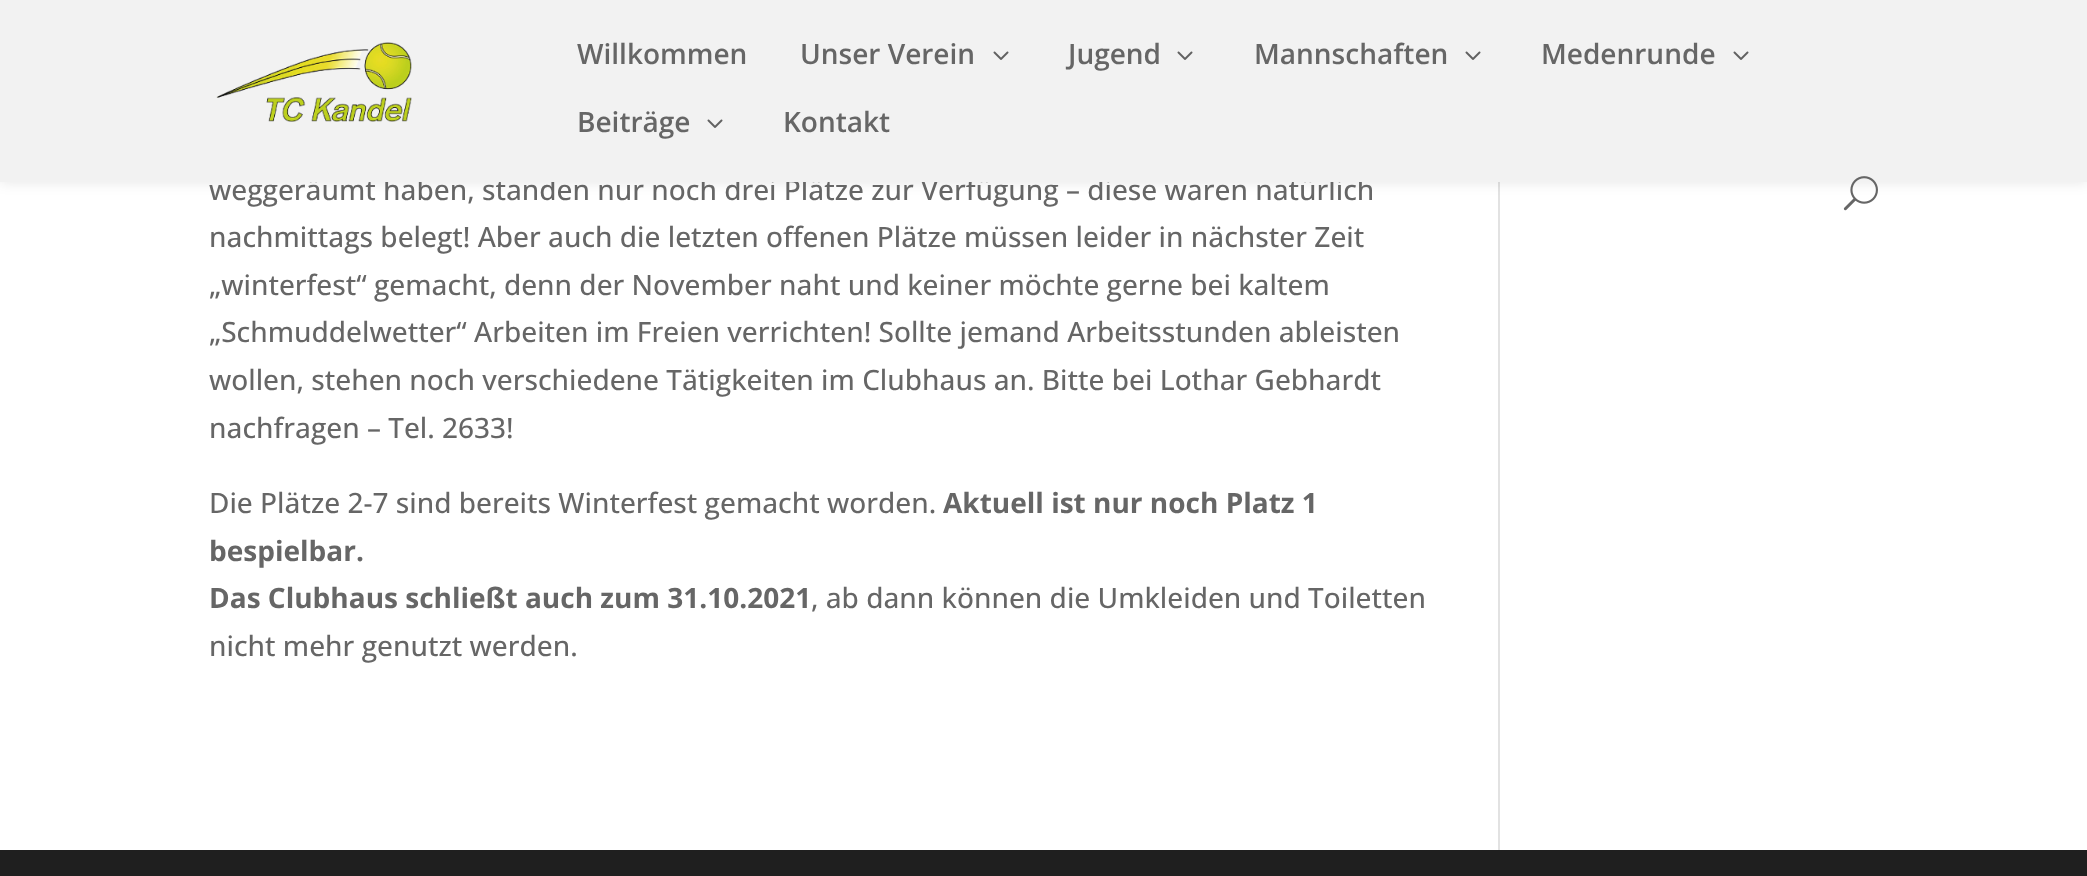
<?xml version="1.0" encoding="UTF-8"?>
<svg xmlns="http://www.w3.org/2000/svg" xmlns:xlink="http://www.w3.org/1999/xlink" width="2087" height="876">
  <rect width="100%" height="100%" fill="#ffffff" />
  <rect x="1498" y="182" width="2" height="668" fill="#e2e2e2" />
  <rect width="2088" height="182" fill="#000000" fill-opacity="0.1" filter="blur(7px)" />
  <rect y="850" width="2087" height="26" fill="#1f1f1f" />
  <text x="209" y="200" style="font-family: Open Sans; font-size: 28px; font-weight: 500; fill: #666666">weggeräumt haben, standen nur noch drei Plätze zur Verfügung – diese waren natürlich</text>
  <rect width="2087" height="182" fill="#f2f2f2" />
  <image x="1843" y="176" width="35" height="35" xlink:href="image3.png" />
  <text x="783" y="132" style="font-family: Open Sans; font-size: 28px; font-weight: 600; fill: #666666">Kontakt</text>
  <image x="707" y="119" width="16" height="9" xlink:href="image2.png" />
  <text x="577" y="132" style="font-family: Open Sans; font-size: 28px; font-weight: 600; fill: #666666">Beiträge</text>
  <image x="1733" y="51" width="16" height="9" xlink:href="image2.png" />
  <text x="1541" y="64" style="font-family: Open Sans; font-size: 28px; font-weight: 600; fill: #666666">Medenrunde</text>
  <image x="1465" y="51" width="16" height="9" xlink:href="image2.png" />
  <text x="1254" y="64" style="font-family: Open Sans; font-size: 28px; font-weight: 600; fill: #666666">Mannschaften</text>
  <image x="1177" y="51" width="16" height="9" xlink:href="image2.png" />
  <text x="1068" y="64" style="font-family: Open Sans; font-size: 28px; font-weight: 600; fill: #666666">Jugend</text>
  <image x="993" y="51" width="16" height="9" xlink:href="image2.png" />
  <text x="800" y="64" style="font-family: Open Sans; font-size: 28px; font-weight: 600; fill: #666666">Unser Verein</text>
  <text x="577" y="64" style="font-family: Open Sans; font-size: 28px; font-weight: 600; fill: #666666">Willkommen</text>
  <image x="216" y="42" width="196" height="80" xlink:href="image1.png" />
  <text x="209" y="247" style="font-family: Open Sans; font-size: 28px; font-weight: 500; fill: #666666">nachmittags belegt! Aber auch die letzten offenen Plätze müssen leider in nächster Zeit</text>
  <text x="209" y="295" style="font-family: Open Sans; font-size: 28px; font-weight: 500; fill: #666666">„winterfest“ gemacht, denn der November naht und keiner möchte gerne bei kaltem</text>
  <text x="209" y="342" style="font-family: Open Sans; font-size: 28px; font-weight: 500; fill: #666666">„Schmuddelwetter“ Arbeiten im Freien verrichten! Sollte jemand Arbeitsstunden ableisten</text>
  <text x="209" y="390" style="font-family: Open Sans; font-size: 28px; font-weight: 500; fill: #666666">wollen, stehen noch verschiedene Tätigkeiten im Clubhaus an. Bitte bei Lothar Gebhardt</text>
  <text x="209" y="438" style="font-family: Open Sans; font-size: 28px; font-weight: 500; fill: #666666">nachfragen – Tel. 2633!</text>
  <text x="209" y="513" style="font-family: Open Sans; font-size: 28px; font-weight: 500; fill: #666666">Die Plätze 2-7 sind bereits Winterfest gemacht worden.</text>
  <text x="943" y="513" style="font-family: Open Sans; font-size: 28px; font-weight: bold; fill: #666666">Aktuell ist nur noch Platz 1</text>
  <text x="209" y="561" style="font-family: Open Sans; font-size: 28px; font-weight: bold; fill: #666666">bespielbar.</text>
  <text x="209" y="608" style="font-family: Open Sans; font-size: 28px; font-weight: bold; fill: #666666">Das Clubhaus schließt auch zum 31.10.2021</text>
  <text x="811" y="608" style="font-family: Open Sans; font-size: 28px; font-weight: 500; fill: #666666">, ab dann können die Umkleiden und Toiletten</text>
  <text x="209" y="656" style="font-family: Open Sans; font-size: 28px; font-weight: 500; fill: #666666">nicht mehr genutzt werden.</text>
</svg>
